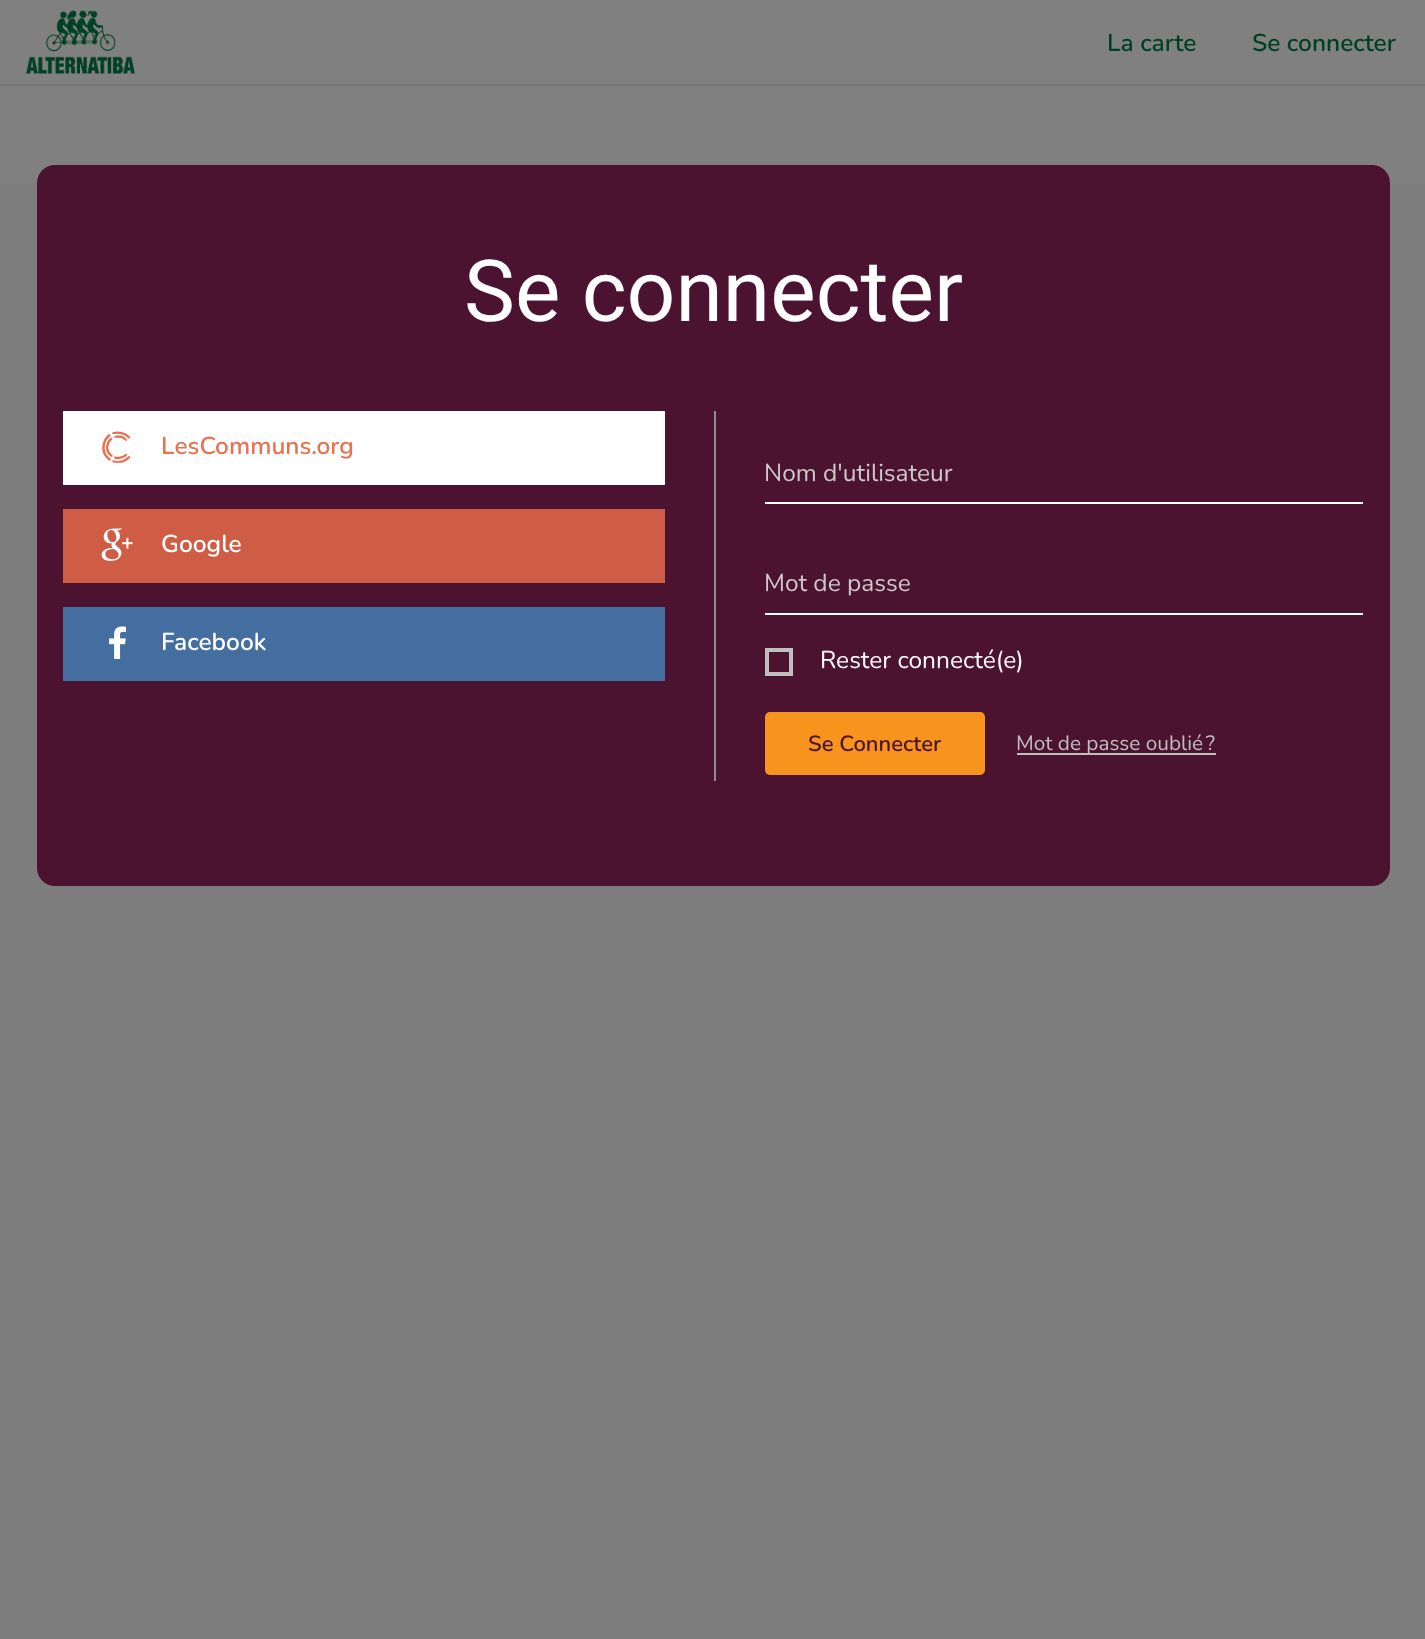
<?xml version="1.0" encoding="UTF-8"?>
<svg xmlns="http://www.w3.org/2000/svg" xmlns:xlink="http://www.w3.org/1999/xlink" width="1425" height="1639">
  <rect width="100%" height="100%" fill="#7e7d7d" />
  <rect width="1425" height="84" fill="#808080" />
  <rect y="84" width="1425" height="2" fill="#757575" />
  <image x="26" y="10" width="109" height="64" xlink:href="image1.png" />
  <rect y="86" width="1425" height="98" fill="#808080" />
  <rect x="37" y="165" width="1353" height="721" rx="18" fill="#4b1330" />
  <rect x="63" y="411" width="602" height="74" fill="#ffffff" />
  <rect x="63" y="509" width="602" height="74" fill="#cf5d46" />
  <image x="101" y="528" width="32" height="33" xlink:href="image2.png" />
  <rect x="63" y="607" width="602" height="74" fill="#446da0" />
  <image x="109" y="626" width="17" height="33" xlink:href="image3.png" />
  <rect x="714" y="411" width="2" height="370" fill="#909090" />
  <rect x="765" y="502" width="598" height="2" fill="#ffffff" />
  <rect x="765" y="613" width="598" height="2" fill="#ffffff" />
  <rect x="767" y="650" width="24" height="24" fill="none" stroke="#bfbfbf" stroke-width="4" />
  <rect x="765" y="712" width="220" height="63" rx="5" fill="#f7941e" />
  <rect x="1017" y="753" width="199" height="2" fill="#bfbfbf" />
  <text x="1107" y="51" style="font-family: Nunito; font-size: 24.5px; font-weight: 600; fill: #004027">La carte</text>
  <text x="1252" y="51" style="font-family: Nunito; font-size: 24.5px; font-weight: 600; fill: #004027">Se connecter</text>
  <text x="464" y="321" style="font-family: Roboto; font-size: 85.75px; fill: #ffffff">Se connecter</text>
  <text x="100" y="465" style="font-family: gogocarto; font-size: 35px; fill: #e87151">4</text>
  <text x="161" y="454" style="font-family: Nunito; font-size: 24.5px; font-weight: 600; fill: #e87151">LesCommuns.org</text>
  <text x="161" y="552" style="font-family: Nunito; font-size: 24.5px; font-weight: 600; fill: #ffffff">Google</text>
  <text x="161" y="650" style="font-family: Nunito; font-size: 24.5px; font-weight: 600; fill: #ffffff">Facebook</text>
  <text x="764" y="481" style="font-family: Nunito; font-size: 24.5px; fill: #ccc8c8">Nom d'utilisateur</text>
  <text x="764" y="591" style="font-family: Nunito; font-size: 24.5px; fill: #ccc8c8">Mot de passe</text>
  <text x="820" y="668" style="font-family: Nunito; font-size: 24.5px; fill: #ffffff">Rester connecté(e)</text>
  <text x="808" y="751" style="font-family: Nunito; font-size: 22px; font-weight: 600; fill: #4b1330">Se Connecter</text>
  <text x="1016" y="750" style="font-family: Nunito; font-size: 20.75px; fill: #bfbfbf">Mot de passe oublié ?</text>
</svg>
